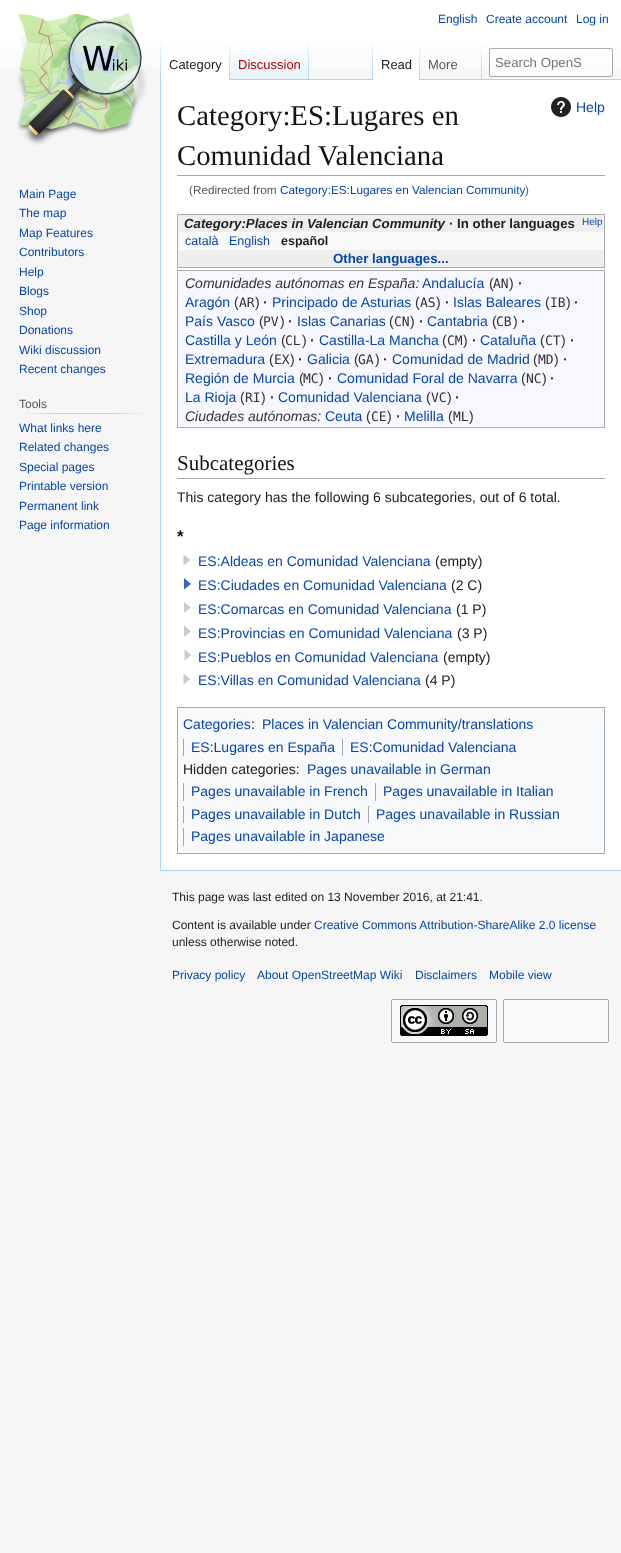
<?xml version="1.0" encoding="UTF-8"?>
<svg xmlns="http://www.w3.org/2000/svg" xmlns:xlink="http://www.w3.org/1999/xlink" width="621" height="1553">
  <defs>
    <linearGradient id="g1" gradientUnits="userSpaceOnUse" x1="311" y1="0" x2="311" y2="80"><stop offset="0.5" stop-color="#ffffff" /><stop offset="1" stop-color="#f6f6f6" /></linearGradient>
    <linearGradient id="g2" gradientUnits="userSpaceOnUse" x1="161" y1="40" x2="161" y2="80"><stop offset="0" stop-color="#a7d7f9" stop-opacity="0" /><stop offset="1" stop-color="#a7d7f9" /></linearGradient>
    <linearGradient id="g3" gradientUnits="userSpaceOnUse" x1="230" y1="40" x2="230" y2="80"><stop offset="0" stop-color="#ffffff" /><stop offset="1" stop-color="#a7d7f9" /></linearGradient>
    <linearGradient id="g4" gradientUnits="userSpaceOnUse" x1="270" y1="80" x2="270" y2="40"><stop offset="0" stop-color="#77c1f6" /><stop offset="0.03" stop-color="#e8f2f8" /><stop offset="1" stop-color="#ffffff" /></linearGradient>
    <linearGradient id="g5" gradientUnits="userSpaceOnUse" x1="309" y1="40" x2="309" y2="80"><stop offset="0" stop-color="#a7d7f9" stop-opacity="0" /><stop offset="1" stop-color="#a7d7f9" /></linearGradient>
    <linearGradient id="g6" gradientUnits="userSpaceOnUse" x1="373" y1="40" x2="373" y2="80"><stop offset="0" stop-color="#a7d7f9" stop-opacity="0" /><stop offset="1" stop-color="#a7d7f9" /></linearGradient>
    <linearGradient id="g7" gradientUnits="userSpaceOnUse" x1="420" y1="40" x2="420" y2="80"><stop offset="0" stop-color="#ffffff" /><stop offset="1" stop-color="#a7d7f9" /></linearGradient>
    <linearGradient id="g8" gradientUnits="userSpaceOnUse" x1="482" y1="40" x2="482" y2="80"><stop offset="0" stop-color="#a7d7f9" stop-opacity="0" /><stop offset="1" stop-color="#a7d7f9" /></linearGradient>
    <linearGradient id="g9" gradientUnits="userSpaceOnUse" x1="19" y1="414" x2="150" y2="414"><stop offset="0" stop-color="#f6f6f6" /><stop offset="0.33" stop-color="#c8ccd1" /><stop offset="0.66" stop-color="#c8ccd1" /><stop offset="1" stop-color="#f6f6f6" /></linearGradient>
  </defs>
  <rect width="100%" height="100%" fill="#f6f6f6" />
  <rect width="621" height="69" fill="url(#g1)" />
  <rect x="160" y="870" width="461" height="1" fill="#a7d7f9" />
  <rect x="160" y="79" width="1" height="792" fill="#a7d7f9" />
  <rect x="160" y="40" width="1" height="40" fill="url(#g2)" />
  <rect x="161" y="51" width="68" height="29" fill="#ffffff" />
  <rect x="229" y="40" width="1" height="40" fill="url(#g3)" />
  <rect x="230" y="46" width="79" height="34" fill="url(#g4)" />
  <rect x="308" y="40" width="1" height="40" fill="url(#g5)" />
  <rect x="309" y="79" width="312" height="1" fill="#a7d7f9" />
  <rect x="372" y="40" width="1" height="40" fill="url(#g6)" />
  <rect x="373" y="51" width="46" height="29" fill="#ffffff" />
  <rect x="419" y="40" width="1" height="40" fill="url(#g7)" />
  <rect x="481" y="40" width="1" height="40" fill="url(#g8)" />
  <rect x="489.5" y="48.5" width="123" height="28" rx="1.5" fill="#ffffff" fill-opacity="0.5" stroke="#a2a9b1" />
  <image x="17" y="13" width="130" height="132" xlink:href="image1.png" />
  <rect x="19" y="413" width="131" height="1" fill="url(#g9)" />
  <rect x="161" y="80" width="460" height="790" fill="#ffffff" />
  <rect x="177" y="175" width="428" height="1" fill="#a2a9b1" />
  <image x="551" y="97" width="20" height="20" xlink:href="image2.png" />
  <rect x="177.5" y="214.5" width="427" height="53" fill="none" stroke="#aaaaaa" />
  <rect x="178" y="215" width="426" height="17" fill="#eeeeee" />
  <rect x="178" y="232" width="426" height="18" fill="#f9f9f9" />
  <rect x="178" y="250" width="426" height="17" fill="#eeeeee" />
  <rect x="177.5" y="270.5" width="427" height="157" fill="#f7f8ff" stroke="#aaaaaa" />
  <rect x="177" y="478" width="428" height="1" fill="#a2a9b1" />
  <path d="M 190.5 560 l -7 5.5 v -11 z" fill="#c8ccd1" />
  <path d="M 191 584 l -7 5.5 v -11.5 z" fill="#3366cc" />
  <path d="M 191 607.5 l -7 5.5 v -11 z m 0 24 l -7 5.5 v -11.5 z m 0.5 23.5 l -7 5.5 v -11 z" fill="#c8ccd1" />
  <path d="M 190.5 679 l -7 5.5 v -11 z" fill="#c8ccd1" />
  <rect x="177.5" y="707.5" width="427" height="146" fill="#f8f9fa" stroke="#a2a9b1" />
  <rect x="183" y="739" width="1" height="17" fill="#a2a9b1" />
  <rect x="342" y="739" width="1" height="17" fill="#a2a9b1" />
  <rect x="183" y="783" width="1" height="18" fill="#a2a9b1" />
  <rect x="375" y="783" width="1" height="18" fill="#a2a9b1" />
  <rect x="183" y="806" width="1" height="17" fill="#a2a9b1" />
  <rect x="368" y="806" width="1" height="17" fill="#a2a9b1" />
  <rect x="183" y="828" width="1" height="18" fill="#a2a9b1" />
  <rect x="391.5" y="999.5" width="105" height="43" rx="1.5" fill="#f8f9fa" stroke="#a2a9b1" />
  <image x="400" y="1005" width="88" height="31" xlink:href="image3.png" />
  <rect x="503.5" y="999.5" width="105" height="43" rx="1.5" fill="#f8f9fa" stroke="#a2a9b1" />
  <text x="438" y="23" style="font-family: Liberation Sans; font-size: 12px; fill: #0645ad">English</text>
  <text x="486" y="23" style="font-family: Liberation Sans; font-size: 12px; fill: #0645ad">Create account</text>
  <text x="576" y="23" style="font-family: Liberation Sans; font-size: 12px; fill: #0645ad">Log in</text>
  <text x="169" y="69" style="font-family: Liberation Sans; font-size: 13px; fill: #202122">Category</text>
  <text x="238" y="69" style="font-family: Liberation Sans; font-size: 13px; fill: #ba0000">Discussion</text>
  <text x="381" y="69" style="font-family: Liberation Sans; font-size: 13px; fill: #202122">Read</text>
  <text x="428" y="69" style="font-family: Liberation Sans; font-size: 13px; fill: #54595d">More</text>
  <text x="495" y="67" style="font-family: Liberation Sans; font-size: 13.25px; fill: #72777d">Search OpenS</text>
  <text x="19" y="198" style="font-family: Liberation Sans; font-size: 12px; fill: #0645ad">Main Page</text>
  <text x="19" y="217" style="font-family: Liberation Sans; font-size: 12px; fill: #0645ad">The map</text>
  <text x="19" y="237" style="font-family: Liberation Sans; font-size: 12px; fill: #0645ad">Map Features</text>
  <text x="19" y="256" style="font-family: Liberation Sans; font-size: 12px; fill: #0645ad">Contributors</text>
  <text x="19" y="276" style="font-family: Liberation Sans; font-size: 12px; fill: #0645ad">Help</text>
  <text x="19" y="295" style="font-family: Liberation Sans; font-size: 12px; fill: #0645ad">Blogs</text>
  <text x="19" y="315" style="font-family: Liberation Sans; font-size: 12px; fill: #0645ad">Shop</text>
  <text x="19" y="334" style="font-family: Liberation Sans; font-size: 12px; fill: #0645ad">Donations</text>
  <text x="19" y="354" style="font-family: Liberation Sans; font-size: 12px; fill: #0645ad">Wiki discussion</text>
  <text x="19" y="373" style="font-family: Liberation Sans; font-size: 12px; fill: #0645ad">Recent changes</text>
  <text x="19" y="408" style="font-family: Liberation Sans; font-size: 12px; fill: #54595d">Tools</text>
  <text x="19" y="432" style="font-family: Liberation Sans; font-size: 12px; fill: #0645ad">What links here</text>
  <text x="19" y="451" style="font-family: Liberation Sans; font-size: 12px; fill: #0645ad">Related changes</text>
  <text x="19" y="471" style="font-family: Liberation Sans; font-size: 12px; fill: #0645ad">Special pages</text>
  <text x="19" y="490" style="font-family: Liberation Sans; font-size: 12px; fill: #0645ad">Printable version</text>
  <text x="19" y="510" style="font-family: Liberation Sans; font-size: 12px; fill: #0645ad">Permanent link</text>
  <text x="19" y="529" style="font-family: Liberation Sans; font-size: 12px; fill: #0645ad">Page information</text>
  <text x="177" y="125" style="font-family: Liberation Serif; font-size: 28.75px; fill: #101418">Category:ES:Lugares en</text>
  <text x="177" y="165" style="font-family: Liberation Serif; font-size: 28.75px; fill: #101418">Comunidad Valenciana</text>
  <text x="576" y="112" style="font-family: Liberation Sans; font-size: 14px; fill: #0645ad">Help</text>
  <text x="189" y="194" style="font-family: Liberation Sans; font-size: 11.75px; fill: #54595d">(Redirected from</text>
  <text x="280" y="194" style="font-family: Liberation Sans; font-size: 11.75px; fill: #0645ad">Category:ES:Lugares en Valencian Community</text>
  <text x="525" y="194" style="font-family: Liberation Sans; font-size: 11.75px; fill: #54595d">)</text>
  <text x="184" y="228" style="font-family: Liberation Sans; font-size: 13.25px; font-weight: bold; font-style: italic; fill: #202122">Category:Places in Valencian Community</text>
  <text x="449" y="228" style="font-family: Liberation Sans; font-size: 13.25px; font-weight: bold; fill: #202122">· In other languages</text>
  <text x="582" y="225" style="font-family: Liberation Sans; font-size: 10px; fill: #0645ad">Help</text>
  <text x="185" y="245" style="font-family: Liberation Sans; font-size: 12.5px; fill: #0645ad">català</text>
  <text x="229" y="245" style="font-family: Liberation Sans; font-size: 12.5px; fill: #0645ad">English</text>
  <text x="281" y="245" style="font-family: Liberation Sans; font-size: 12.5px; font-weight: bold; fill: #202122">español</text>
  <text x="333" y="263" style="font-family: Liberation Sans; font-size: 13.25px; font-weight: bold; fill: #0645ad">Other languages...</text>
  <text x="185" y="288" style="font-family: Liberation Sans; font-size: 14px; font-style: italic; fill: #333333">Comunidades autónomas en España:</text>
  <text x="422" y="288" style="font-family: Liberation Sans; font-size: 14px; fill: #0645ad">Andalucía</text>
  <text x="489" y="288" style="font-family: Liberation Sans; font-size: 14px; fill: #333333">(</text>
  <text x="493" y="288" style="font-family: DejaVu Sans Mono; font-size: 13px; fill: #333333">AN</text>
  <text x="509" y="288" style="font-family: Liberation Sans; font-size: 14px; fill: #333333">)</text>
  <text x="518" y="288" style="font-family: Liberation Sans; font-size: 14px; font-weight: bold; fill: #333333">·</text>
  <text x="185" y="307" style="font-family: Liberation Sans; font-size: 14px; fill: #0645ad">Aragón</text>
  <text x="234" y="307" style="font-family: Liberation Sans; font-size: 14px; fill: #333333">(</text>
  <text x="239" y="307" style="font-family: DejaVu Sans Mono; font-size: 13px; fill: #333333">AR</text>
  <text x="255" y="307" style="font-family: Liberation Sans; font-size: 14px; fill: #333333">)</text>
  <text x="263" y="307" style="font-family: Liberation Sans; font-size: 14px; font-weight: bold; fill: #333333">·</text>
  <text x="272" y="307" style="font-family: Liberation Sans; font-size: 14px; fill: #0645ad">Principado de Asturias</text>
  <text x="415" y="307" style="font-family: Liberation Sans; font-size: 14px; fill: #333333">(</text>
  <text x="420" y="307" style="font-family: DejaVu Sans Mono; font-size: 13px; fill: #333333">AS</text>
  <text x="436" y="307" style="font-family: Liberation Sans; font-size: 14px; fill: #333333">)</text>
  <text x="445" y="307" style="font-family: Liberation Sans; font-size: 14px; font-weight: bold; fill: #333333">·</text>
  <text x="453" y="307" style="font-family: Liberation Sans; font-size: 14px; fill: #0645ad">Islas Baleares</text>
  <text x="545" y="307" style="font-family: Liberation Sans; font-size: 14px; fill: #333333">(</text>
  <text x="550" y="307" style="font-family: DejaVu Sans Mono; font-size: 13px; fill: #333333">IB</text>
  <text x="566" y="307" style="font-family: Liberation Sans; font-size: 14px; fill: #333333">)</text>
  <text x="574" y="307" style="font-family: Liberation Sans; font-size: 14px; font-weight: bold; fill: #333333">·</text>
  <text x="185" y="326" style="font-family: Liberation Sans; font-size: 14px; fill: #0645ad">País Vasco</text>
  <text x="259" y="326" style="font-family: Liberation Sans; font-size: 14px; fill: #333333">(</text>
  <text x="263" y="326" style="font-family: DejaVu Sans Mono; font-size: 13px; fill: #333333">PV</text>
  <text x="280" y="326" style="font-family: Liberation Sans; font-size: 14px; fill: #333333">)</text>
  <text x="288" y="326" style="font-family: Liberation Sans; font-size: 14px; font-weight: bold; fill: #333333">·</text>
  <text x="297" y="326" style="font-family: Liberation Sans; font-size: 14px; fill: #0645ad">Islas Canarias</text>
  <text x="389" y="326" style="font-family: Liberation Sans; font-size: 14px; fill: #333333">(</text>
  <text x="394" y="326" style="font-family: DejaVu Sans Mono; font-size: 13px; fill: #333333">CN</text>
  <text x="410" y="326" style="font-family: Liberation Sans; font-size: 14px; fill: #333333">)</text>
  <text x="419" y="326" style="font-family: Liberation Sans; font-size: 14px; font-weight: bold; fill: #333333">·</text>
  <text x="427" y="326" style="font-family: Liberation Sans; font-size: 14px; fill: #0645ad">Cantabria</text>
  <text x="492" y="326" style="font-family: Liberation Sans; font-size: 14px; fill: #333333">(</text>
  <text x="496" y="326" style="font-family: DejaVu Sans Mono; font-size: 13px; fill: #333333">CB</text>
  <text x="513" y="326" style="font-family: Liberation Sans; font-size: 14px; fill: #333333">)</text>
  <text x="521" y="326" style="font-family: Liberation Sans; font-size: 14px; font-weight: bold; fill: #333333">·</text>
  <text x="185" y="345" style="font-family: Liberation Sans; font-size: 14px; fill: #0645ad">Castilla y León</text>
  <text x="281" y="345" style="font-family: Liberation Sans; font-size: 14px; fill: #333333">(</text>
  <text x="285" y="345" style="font-family: DejaVu Sans Mono; font-size: 13px; fill: #333333">CL</text>
  <text x="302" y="345" style="font-family: Liberation Sans; font-size: 14px; fill: #333333">)</text>
  <text x="310" y="345" style="font-family: Liberation Sans; font-size: 14px; font-weight: bold; fill: #333333">·</text>
  <text x="319" y="345" style="font-family: Liberation Sans; font-size: 14px; fill: #0645ad">Castilla-La Mancha</text>
  <text x="442" y="345" style="font-family: Liberation Sans; font-size: 14px; fill: #333333">(</text>
  <text x="447" y="345" style="font-family: DejaVu Sans Mono; font-size: 13px; fill: #333333">CM</text>
  <text x="463" y="345" style="font-family: Liberation Sans; font-size: 14px; fill: #333333">)</text>
  <text x="472" y="345" style="font-family: Liberation Sans; font-size: 14px; font-weight: bold; fill: #333333">·</text>
  <text x="480" y="345" style="font-family: Liberation Sans; font-size: 14px; fill: #0645ad">Cataluña</text>
  <text x="540" y="345" style="font-family: Liberation Sans; font-size: 14px; fill: #333333">(</text>
  <text x="545" y="345" style="font-family: DejaVu Sans Mono; font-size: 13px; fill: #333333">CT</text>
  <text x="561" y="345" style="font-family: Liberation Sans; font-size: 14px; fill: #333333">)</text>
  <text x="570" y="345" style="font-family: Liberation Sans; font-size: 14px; font-weight: bold; fill: #333333">·</text>
  <text x="185" y="364" style="font-family: Liberation Sans; font-size: 14px; fill: #0645ad">Extremadura</text>
  <text x="269" y="364" style="font-family: Liberation Sans; font-size: 14px; fill: #333333">(</text>
  <text x="274" y="364" style="font-family: DejaVu Sans Mono; font-size: 13px; fill: #333333">EX</text>
  <text x="290" y="364" style="font-family: Liberation Sans; font-size: 14px; fill: #333333">)</text>
  <text x="298" y="364" style="font-family: Liberation Sans; font-size: 14px; font-weight: bold; fill: #333333">·</text>
  <text x="307" y="364" style="font-family: Liberation Sans; font-size: 14px; fill: #0645ad">Galicia</text>
  <text x="354" y="364" style="font-family: Liberation Sans; font-size: 14px; fill: #333333">(</text>
  <text x="358" y="364" style="font-family: DejaVu Sans Mono; font-size: 13px; fill: #333333">GA</text>
  <text x="375" y="364" style="font-family: Liberation Sans; font-size: 14px; fill: #333333">)</text>
  <text x="383" y="364" style="font-family: Liberation Sans; font-size: 14px; font-weight: bold; fill: #333333">·</text>
  <text x="392" y="364" style="font-family: Liberation Sans; font-size: 14px; fill: #0645ad">Comunidad de Madrid</text>
  <text x="533" y="364" style="font-family: Liberation Sans; font-size: 14px; fill: #333333">(</text>
  <text x="538" y="364" style="font-family: DejaVu Sans Mono; font-size: 13px; fill: #333333">MD</text>
  <text x="554" y="364" style="font-family: Liberation Sans; font-size: 14px; fill: #333333">)</text>
  <text x="563" y="364" style="font-family: Liberation Sans; font-size: 14px; font-weight: bold; fill: #333333">·</text>
  <text x="185" y="383" style="font-family: Liberation Sans; font-size: 14px; fill: #0645ad">Región de Murcia</text>
  <text x="299" y="383" style="font-family: Liberation Sans; font-size: 14px; fill: #333333">(</text>
  <text x="303" y="383" style="font-family: DejaVu Sans Mono; font-size: 13px; fill: #333333">MC</text>
  <text x="319" y="383" style="font-family: Liberation Sans; font-size: 14px; fill: #333333">)</text>
  <text x="328" y="383" style="font-family: Liberation Sans; font-size: 14px; font-weight: bold; fill: #333333">·</text>
  <text x="337" y="383" style="font-family: Liberation Sans; font-size: 14px; fill: #0645ad">Comunidad Foral de Navarra</text>
  <text x="521" y="383" style="font-family: Liberation Sans; font-size: 14px; fill: #333333">(</text>
  <text x="526" y="383" style="font-family: DejaVu Sans Mono; font-size: 13px; fill: #333333">NC</text>
  <text x="542" y="383" style="font-family: Liberation Sans; font-size: 14px; fill: #333333">)</text>
  <text x="550" y="383" style="font-family: Liberation Sans; font-size: 14px; font-weight: bold; fill: #333333">·</text>
  <text x="185" y="402" style="font-family: Liberation Sans; font-size: 14px; fill: #0645ad">La Rioja</text>
  <text x="240" y="402" style="font-family: Liberation Sans; font-size: 14px; fill: #333333">(</text>
  <text x="245" y="402" style="font-family: DejaVu Sans Mono; font-size: 13px; fill: #333333">RI</text>
  <text x="261" y="402" style="font-family: Liberation Sans; font-size: 14px; fill: #333333">)</text>
  <text x="270" y="402" style="font-family: Liberation Sans; font-size: 14px; font-weight: bold; fill: #333333">·</text>
  <text x="278" y="402" style="font-family: Liberation Sans; font-size: 14px; fill: #0645ad">Comunidad Valenciana</text>
  <text x="426" y="402" style="font-family: Liberation Sans; font-size: 14px; fill: #333333">(</text>
  <text x="431" y="402" style="font-family: DejaVu Sans Mono; font-size: 13px; fill: #333333">VC</text>
  <text x="447" y="402" style="font-family: Liberation Sans; font-size: 14px; fill: #333333">)</text>
  <text x="455" y="402" style="font-family: Liberation Sans; font-size: 14px; font-weight: bold; fill: #333333">·</text>
  <text x="185" y="421" style="font-family: Liberation Sans; font-size: 14px; font-style: italic; fill: #333333">Ciudades autónomas:</text>
  <text x="325" y="421" style="font-family: Liberation Sans; font-size: 14px; fill: #0645ad">Ceuta</text>
  <text x="366" y="421" style="font-family: Liberation Sans; font-size: 14px; fill: #333333">(</text>
  <text x="371" y="421" style="font-family: DejaVu Sans Mono; font-size: 13px; fill: #333333">CE</text>
  <text x="387" y="421" style="font-family: Liberation Sans; font-size: 14px; fill: #333333">)</text>
  <text x="396" y="421" style="font-family: Liberation Sans; font-size: 14px; font-weight: bold; fill: #333333">·</text>
  <text x="404" y="421" style="font-family: Liberation Sans; font-size: 14px; fill: #0645ad">Melilla</text>
  <text x="448" y="421" style="font-family: Liberation Sans; font-size: 14px; fill: #333333">(</text>
  <text x="453" y="421" style="font-family: DejaVu Sans Mono; font-size: 13px; fill: #333333">ML</text>
  <text x="469" y="421" style="font-family: Liberation Sans; font-size: 14px; fill: #333333">)</text>
  <text x="177" y="470" style="font-family: Liberation Serif; font-size: 21px; fill: #101418">Subcategories</text>
  <text x="177" y="502" style="font-family: Liberation Sans; font-size: 14px; fill: #202122">This category has the following 6 subcategories, out of 6 total.</text>
  <text x="177" y="542" style="font-family: Liberation Sans; font-size: 17px; font-weight: bold; fill: #101418">*</text>
  <text x="198" y="566" style="font-family: Liberation Sans; font-size: 14px; fill: #0645ad">ES:Aldeas en Comunidad Valenciana</text>
  <text x="435" y="566" style="font-family: Liberation Sans; font-size: 14px; fill: #202122">(empty)</text>
  <text x="198" y="590" style="font-family: Liberation Sans; font-size: 14px; fill: #0645ad">ES:Ciudades en Comunidad Valenciana</text>
  <text x="451" y="590" style="font-family: Liberation Sans; font-size: 14px; fill: #202122">(2 C)</text>
  <text x="198" y="614" style="font-family: Liberation Sans; font-size: 14px; fill: #0645ad">ES:Comarcas en Comunidad Valenciana</text>
  <text x="456" y="614" style="font-family: Liberation Sans; font-size: 14px; fill: #202122">(1 P)</text>
  <text x="198" y="638" style="font-family: Liberation Sans; font-size: 14px; fill: #0645ad">ES:Provincias en Comunidad Valenciana</text>
  <text x="457" y="638" style="font-family: Liberation Sans; font-size: 14px; fill: #202122">(3 P)</text>
  <text x="198" y="662" style="font-family: Liberation Sans; font-size: 14px; fill: #0645ad">ES:Pueblos en Comunidad Valenciana</text>
  <text x="443" y="662" style="font-family: Liberation Sans; font-size: 14px; fill: #202122">(empty)</text>
  <text x="198" y="685" style="font-family: Liberation Sans; font-size: 14px; fill: #0645ad">ES:Villas en Comunidad Valenciana</text>
  <text x="425" y="685" style="font-family: Liberation Sans; font-size: 14px; fill: #202122">(4 P)</text>
  <text x="183" y="729" style="font-family: Liberation Sans; font-size: 14px; fill: #0645ad">Categories</text>
  <text x="262" y="729" style="font-family: Liberation Sans; font-size: 14px; fill: #0645ad">Places in Valencian Community/translations</text>
  <text x="191" y="752" style="font-family: Liberation Sans; font-size: 14px; fill: #0645ad">ES:Lugares en España</text>
  <text x="350" y="752" style="font-family: Liberation Sans; font-size: 14px; fill: #0645ad">ES:Comunidad Valenciana</text>
  <text x="251" y="729" style="font-family: Liberation Sans; font-size: 14px; fill: #202122">:</text>
  <text x="183" y="774" style="font-family: Liberation Sans; font-size: 14px; fill: #202122">Hidden categories:</text>
  <text x="307" y="774" style="font-family: Liberation Sans; font-size: 14px; fill: #0645ad">Pages unavailable in German</text>
  <text x="191" y="796" style="font-family: Liberation Sans; font-size: 14px; fill: #0645ad">Pages unavailable in French</text>
  <text x="383" y="796" style="font-family: Liberation Sans; font-size: 14px; fill: #0645ad">Pages unavailable in Italian</text>
  <text x="191" y="819" style="font-family: Liberation Sans; font-size: 14px; fill: #0645ad">Pages unavailable in Dutch</text>
  <text x="376" y="819" style="font-family: Liberation Sans; font-size: 14px; fill: #0645ad">Pages unavailable in Russian</text>
  <text x="191" y="841" style="font-family: Liberation Sans; font-size: 14px; fill: #0645ad">Pages unavailable in Japanese</text>
  <text x="172" y="901" style="font-family: Liberation Sans; font-size: 12px; fill: #202122">This page was last edited on 13 November 2016, at 21:41.</text>
  <text x="172" y="929" style="font-family: Liberation Sans; font-size: 12px; fill: #202122">Content is available under</text>
  <text x="314" y="929" style="font-family: Liberation Sans; font-size: 12px; fill: #0645ad">Creative Commons Attribution-ShareAlike 2.0 license</text>
  <text x="172" y="946" style="font-family: Liberation Sans; font-size: 12px; fill: #202122">unless otherwise noted.</text>
  <text x="172" y="979" style="font-family: Liberation Sans; font-size: 12px; fill: #0645ad">Privacy policy</text>
  <text x="257" y="979" style="font-family: Liberation Sans; font-size: 12px; fill: #0645ad">About OpenStreetMap Wiki</text>
  <text x="415" y="979" style="font-family: Liberation Sans; font-size: 12px; fill: #0645ad">Disclaimers</text>
  <text x="489" y="979" style="font-family: Liberation Sans; font-size: 12px; fill: #0645ad">Mobile view</text>
</svg>
